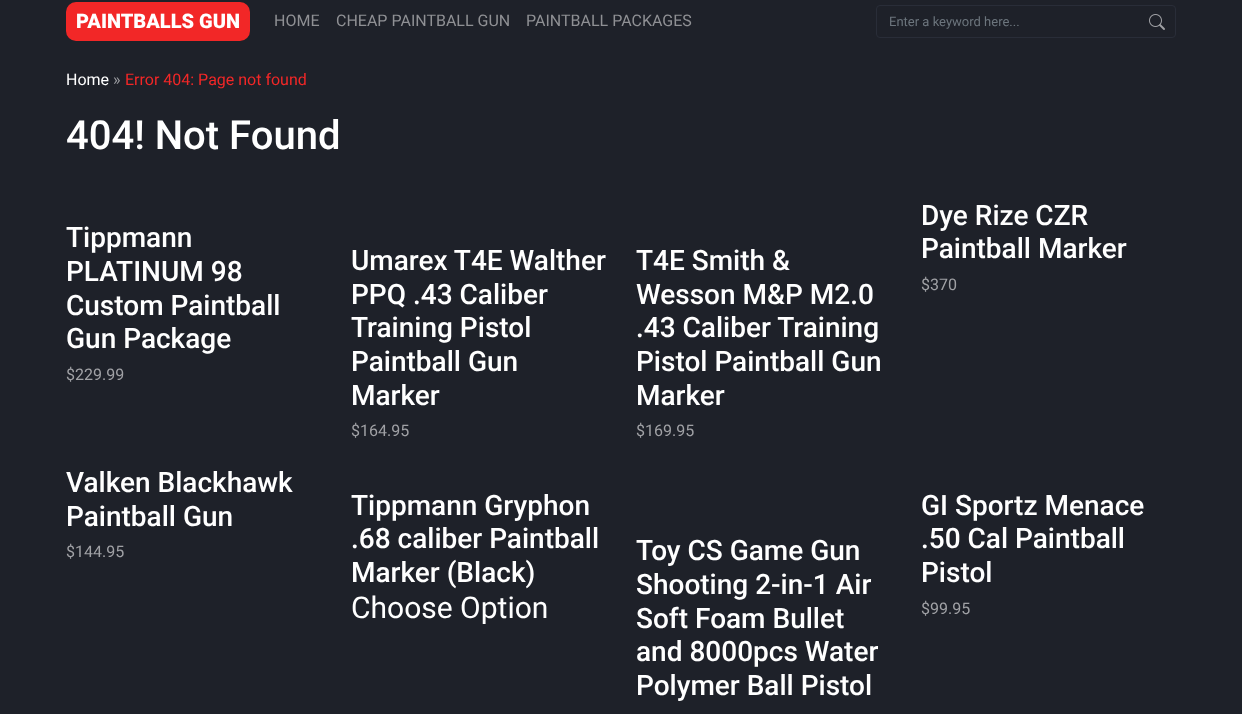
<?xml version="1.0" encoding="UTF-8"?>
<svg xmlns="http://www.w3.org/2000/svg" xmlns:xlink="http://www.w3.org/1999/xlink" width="1242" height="714">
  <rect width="100%" height="100%" fill="#1e2129" />
  <rect x="66" y="2" width="184" height="39" rx="10" fill="#f22727" />
  <rect x="876.5" y="5.5" width="299" height="32" rx="3.5" fill="none" stroke="#292d38" />
  <image x="1149" y="14" width="16" height="16" xlink:href="image1.png" />
  <text x="76" y="28" style="font-family: Roboto; font-size: 20px; font-weight: 900; fill: #ffffff">PAINTBALLS GUN</text>
  <text x="274" y="26" style="font-family: Roboto; font-size: 16px; fill: #8f9094">HOME</text>
  <text x="336" y="26" style="font-family: Roboto; font-size: 16px; fill: #8f9094">CHEAP PAINTBALL GUN</text>
  <text x="526" y="26" style="font-family: Roboto; font-size: 16px; fill: #8f9094">PAINTBALL PACKAGES</text>
  <text x="889" y="26" style="font-family: Roboto; font-size: 13px; fill: #6c757d">Enter a keyword here...</text>
  <text x="66" y="85" style="font-family: Roboto; font-size: 16px; fill: #ffffff">Home</text>
  <text x="113" y="85" style="font-family: Roboto; font-size: 16px; fill: #a0a1a5">»</text>
  <text x="125" y="85" style="font-family: Roboto; font-size: 16px; fill: #f22727">Error 404: Page not found</text>
  <text x="66" y="149" style="font-family: Roboto; font-size: 40px; font-weight: 500; fill: #ffffff">404! Not Found</text>
  <text x="66" y="247" style="font-family: Roboto; font-size: 28px; font-weight: 500; fill: #ffffff">Tippmann</text>
  <text x="66" y="281" style="font-family: Roboto; font-size: 28px; font-weight: 500; fill: #ffffff">PLATINUM 98</text>
  <text x="66" y="315" style="font-family: Roboto; font-size: 28px; font-weight: 500; fill: #ffffff">Custom Paintball</text>
  <text x="66" y="348" style="font-family: Roboto; font-size: 28px; font-weight: 500; fill: #ffffff">Gun Package</text>
  <text x="66" y="380" style="font-family: Roboto; font-size: 16px; fill: #a0a1a5">$229.99</text>
  <text x="351" y="270" style="font-family: Roboto; font-size: 28px; font-weight: 500; fill: #ffffff">Umarex T4E Walther</text>
  <text x="351" y="304" style="font-family: Roboto; font-size: 28px; font-weight: 500; fill: #ffffff">PPQ .43 Caliber</text>
  <text x="351" y="337" style="font-family: Roboto; font-size: 28px; font-weight: 500; fill: #ffffff">Training Pistol</text>
  <text x="351" y="371" style="font-family: Roboto; font-size: 28px; font-weight: 500; fill: #ffffff">Paintball Gun</text>
  <text x="351" y="405" style="font-family: Roboto; font-size: 28px; font-weight: 500; fill: #ffffff">Marker</text>
  <text x="351" y="436" style="font-family: Roboto; font-size: 16px; fill: #a0a1a5">$164.95</text>
  <text x="636" y="270" style="font-family: Roboto; font-size: 28px; font-weight: 500; fill: #ffffff">T4E Smith &amp;</text>
  <text x="636" y="304" style="font-family: Roboto; font-size: 28px; font-weight: 500; fill: #ffffff">Wesson M&amp;P M2.0</text>
  <text x="636" y="337" style="font-family: Roboto; font-size: 28px; font-weight: 500; fill: #ffffff">.43 Caliber Training</text>
  <text x="636" y="371" style="font-family: Roboto; font-size: 28px; font-weight: 500; fill: #ffffff">Pistol Paintball Gun</text>
  <text x="636" y="405" style="font-family: Roboto; font-size: 28px; font-weight: 500; fill: #ffffff">Marker</text>
  <text x="636" y="436" style="font-family: Roboto; font-size: 16px; fill: #a0a1a5">$169.95</text>
  <text x="921" y="225" style="font-family: Roboto; font-size: 28px; font-weight: 500; fill: #ffffff">Dye Rize CZR</text>
  <text x="921" y="258" style="font-family: Roboto; font-size: 28px; font-weight: 500; fill: #ffffff">Paintball Marker</text>
  <text x="921" y="290" style="font-family: Roboto; font-size: 16px; fill: #a0a1a5">$370</text>
  <text x="66" y="492" style="font-family: Roboto; font-size: 28px; font-weight: 500; fill: #ffffff">Valken Blackhawk</text>
  <text x="66" y="526" style="font-family: Roboto; font-size: 28px; font-weight: 500; fill: #ffffff">Paintball Gun</text>
  <text x="66" y="557" style="font-family: Roboto; font-size: 16px; fill: #a0a1a5">$144.95</text>
  <text x="351" y="515" style="font-family: Roboto; font-size: 28px; font-weight: 500; fill: #ffffff">Tippmann Gryphon</text>
  <text x="351" y="548" style="font-family: Roboto; font-size: 28px; font-weight: 500; fill: #ffffff">.68 caliber Paintball</text>
  <text x="351" y="582" style="font-family: Roboto; font-size: 28px; font-weight: 500; fill: #ffffff">Marker (Black)</text>
  <text x="351" y="618" style="font-family: Roboto; font-size: 30px; fill: #ffffff">Choose Option</text>
  <text x="636" y="560" style="font-family: Roboto; font-size: 28px; font-weight: 500; fill: #ffffff">Toy CS Game Gun</text>
  <text x="636" y="594" style="font-family: Roboto; font-size: 28px; font-weight: 500; fill: #ffffff">Shooting 2-in-1 Air</text>
  <text x="636" y="628" style="font-family: Roboto; font-size: 28px; font-weight: 500; fill: #ffffff">Soft Foam Bullet</text>
  <text x="636" y="661" style="font-family: Roboto; font-size: 28px; font-weight: 500; fill: #ffffff">and 8000pcs Water</text>
  <text x="636" y="695" style="font-family: Roboto; font-size: 28px; font-weight: 500; fill: #ffffff">Polymer Ball Pistol</text>
  <text x="921" y="515" style="font-family: Roboto; font-size: 28px; font-weight: 500; fill: #ffffff">GI Sportz Menace</text>
  <text x="921" y="548" style="font-family: Roboto; font-size: 28px; font-weight: 500; fill: #ffffff">.50 Cal Paintball</text>
  <text x="921" y="582" style="font-family: Roboto; font-size: 28px; font-weight: 500; fill: #ffffff">Pistol</text>
  <text x="921" y="614" style="font-family: Roboto; font-size: 16px; fill: #a0a1a5">$99.95</text>
</svg>
